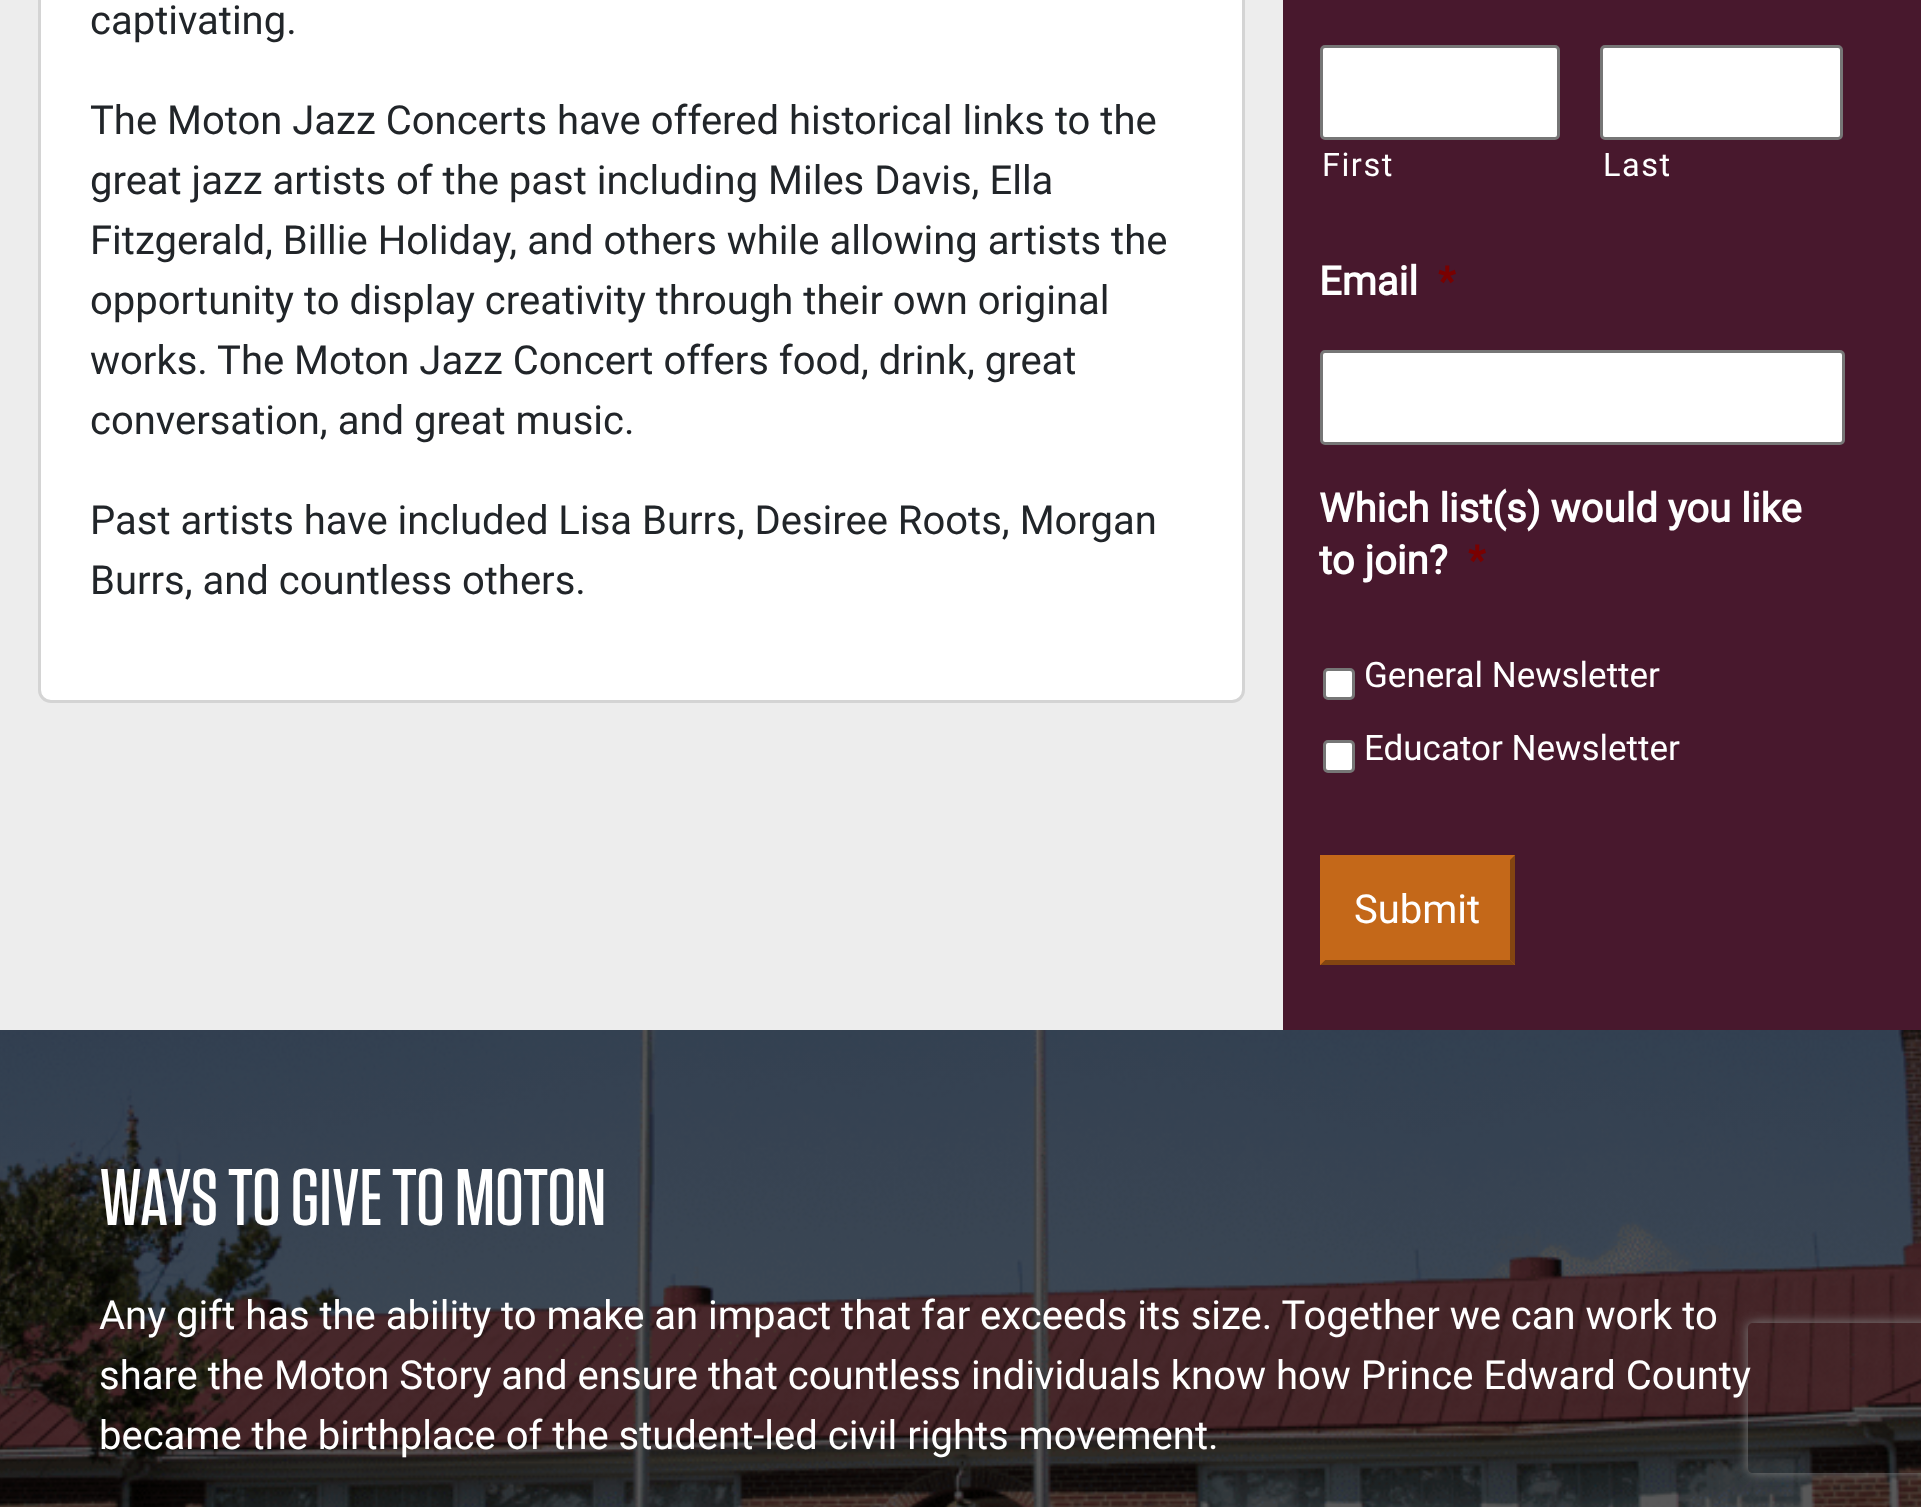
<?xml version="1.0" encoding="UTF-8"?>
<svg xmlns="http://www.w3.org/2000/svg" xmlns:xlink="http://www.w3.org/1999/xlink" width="1921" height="1507">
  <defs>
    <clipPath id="clip1"><path d="M 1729 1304 h 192 v 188 h -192 z m 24 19 h 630 c 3 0 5 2 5 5 v 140 c 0 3 -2 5 -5 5 h -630 c -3 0 -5 -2 -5 -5 v -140 c 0 -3 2 -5 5 -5 z" clip-rule="evenodd" /></clipPath>
  </defs>
  <rect width="100%" height="100%" fill="#ffffff" />
  <rect width="1283" height="1030" fill="#ededed" />
  <rect x="39.5" y="-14.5" width="1204" height="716" rx="11.5" fill="#ffffff" stroke="#d4d4d4" stroke-width="3" />
  <rect x="1283" width="638" height="1030" fill="#48182d" />
  <rect x="1321.5" y="46.5" width="237" height="92" rx="3.5" fill="#ffffff" stroke="#767676" stroke-width="3" />
  <rect x="1601.5" y="46.5" width="240" height="92" rx="3.5" fill="#ffffff" stroke="#767676" stroke-width="3" />
  <rect x="1321.5" y="351.5" width="522" height="92" rx="3.5" fill="#ffffff" stroke="#767676" stroke-width="3" />
  <rect x="1324.5" y="669.5" width="29" height="29" rx="3.5" fill="#ffffff" stroke="#767676" stroke-width="3" />
  <rect x="1324.5" y="741.5" width="29" height="30" rx="3.5" fill="#ffffff" stroke="#767676" stroke-width="3" />
  <rect x="1320" y="855" width="195" height="110" fill="#c46819" />
  <path d="M 1515 855 v 110 l -5 -5 v -100 z" fill="#834511" />
  <path d="M 1515 965 h -195 l 5 -5 h 185 z" fill="#834511" />
  <path d="M 1320 965 v -110 l 5 5 v 100 z" fill="#c46819" />
  <image x="0" y="1030" width="1921" height="477" xlink:href="image1.png" />
  <g clip-path="url(#clip1)">
    <rect x="1748" y="1323" width="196" height="150" rx="5" fill="#808080" filter="blur(6px)" />
  </g>
  <text x="90" y="34" style="font-family: Roboto; font-size: 40px; fill: #212529">captivating.</text>
  <text x="90" y="134" style="font-family: Roboto; font-size: 40px; fill: #212529">The Moton Jazz Concerts have offered historical links to the</text>
  <text x="90" y="194" style="font-family: Roboto; font-size: 40px; fill: #212529">great jazz artists of the past including Miles Davis, Ella</text>
  <text x="90" y="254" style="font-family: Roboto; font-size: 40px; fill: #212529">Fitzgerald, Billie Holiday, and others while allowing artists the</text>
  <text x="90" y="314" style="font-family: Roboto; font-size: 40px; fill: #212529">opportunity to display creativity through their own original</text>
  <text x="90" y="374" style="font-family: Roboto; font-size: 40px; fill: #212529">works. The Moton Jazz Concert offers food, drink, great</text>
  <text x="90" y="434" style="font-family: Roboto; font-size: 40px; fill: #212529">conversation, and great music.</text>
  <text x="90" y="534" style="font-family: Roboto; font-size: 40px; fill: #212529">Past artists have included Lisa Burrs, Desiree Roots, Morgan</text>
  <text x="90" y="594" style="font-family: Roboto; font-size: 40px; fill: #212529">Burrs, and countless others.</text>
  <text x="1322" y="176" style="font-family: Roboto; font-size: 32.5px; letter-spacing: 1.5px; fill: #ffffff">First</text>
  <text x="1603" y="176" style="font-family: Roboto; font-size: 32.5px; letter-spacing: 1.5px; fill: #ffffff">Last</text>
  <text x="1319" y="295" style="font-family: Roboto; font-size: 40px; font-weight: bold; fill: #ffffff">Email</text>
  <text x="1438" y="295" style="font-family: Roboto; font-size: 40px; font-weight: bold; fill: #790000">*</text>
  <text x="1319" y="522" style="font-family: Roboto; font-size: 40px; font-weight: bold; fill: #ffffff">Which list(s) would you like</text>
  <text x="1319" y="574" style="font-family: Roboto; font-size: 40px; font-weight: bold; fill: #ffffff">to join?</text>
  <text x="1468" y="574" style="font-family: Roboto; font-size: 40px; font-weight: bold; fill: #790000">*</text>
  <text x="1364" y="687" style="font-family: Roboto; font-size: 35px; fill: #ffffff">General Newsletter</text>
  <text x="1364" y="760" style="font-family: Roboto; font-size: 35px; fill: #ffffff">Educator Newsletter</text>
  <text x="1354" y="923" style="font-family: Roboto; font-size: 40px; fill: #ffffff">Submit</text>
  <text x="99" y="1225" style="font-family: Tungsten; font-size: 80px; font-weight: 500; fill: #ffffff">WAYS TO GIVE TO MOTON</text>
  <text x="99" y="1329" style="font-family: Roboto; font-size: 40px; fill: #ffffff">Any gift has the ability to make an impact that far exceeds its size. Together we can work to</text>
  <text x="99" y="1389" style="font-family: Roboto; font-size: 40px; fill: #ffffff">share the Moton Story and ensure that countless individuals know how Prince Edward County</text>
  <text x="99" y="1449" style="font-family: Roboto; font-size: 40px; fill: #ffffff">became the birthplace of the student-led civil rights movement.</text>
</svg>
